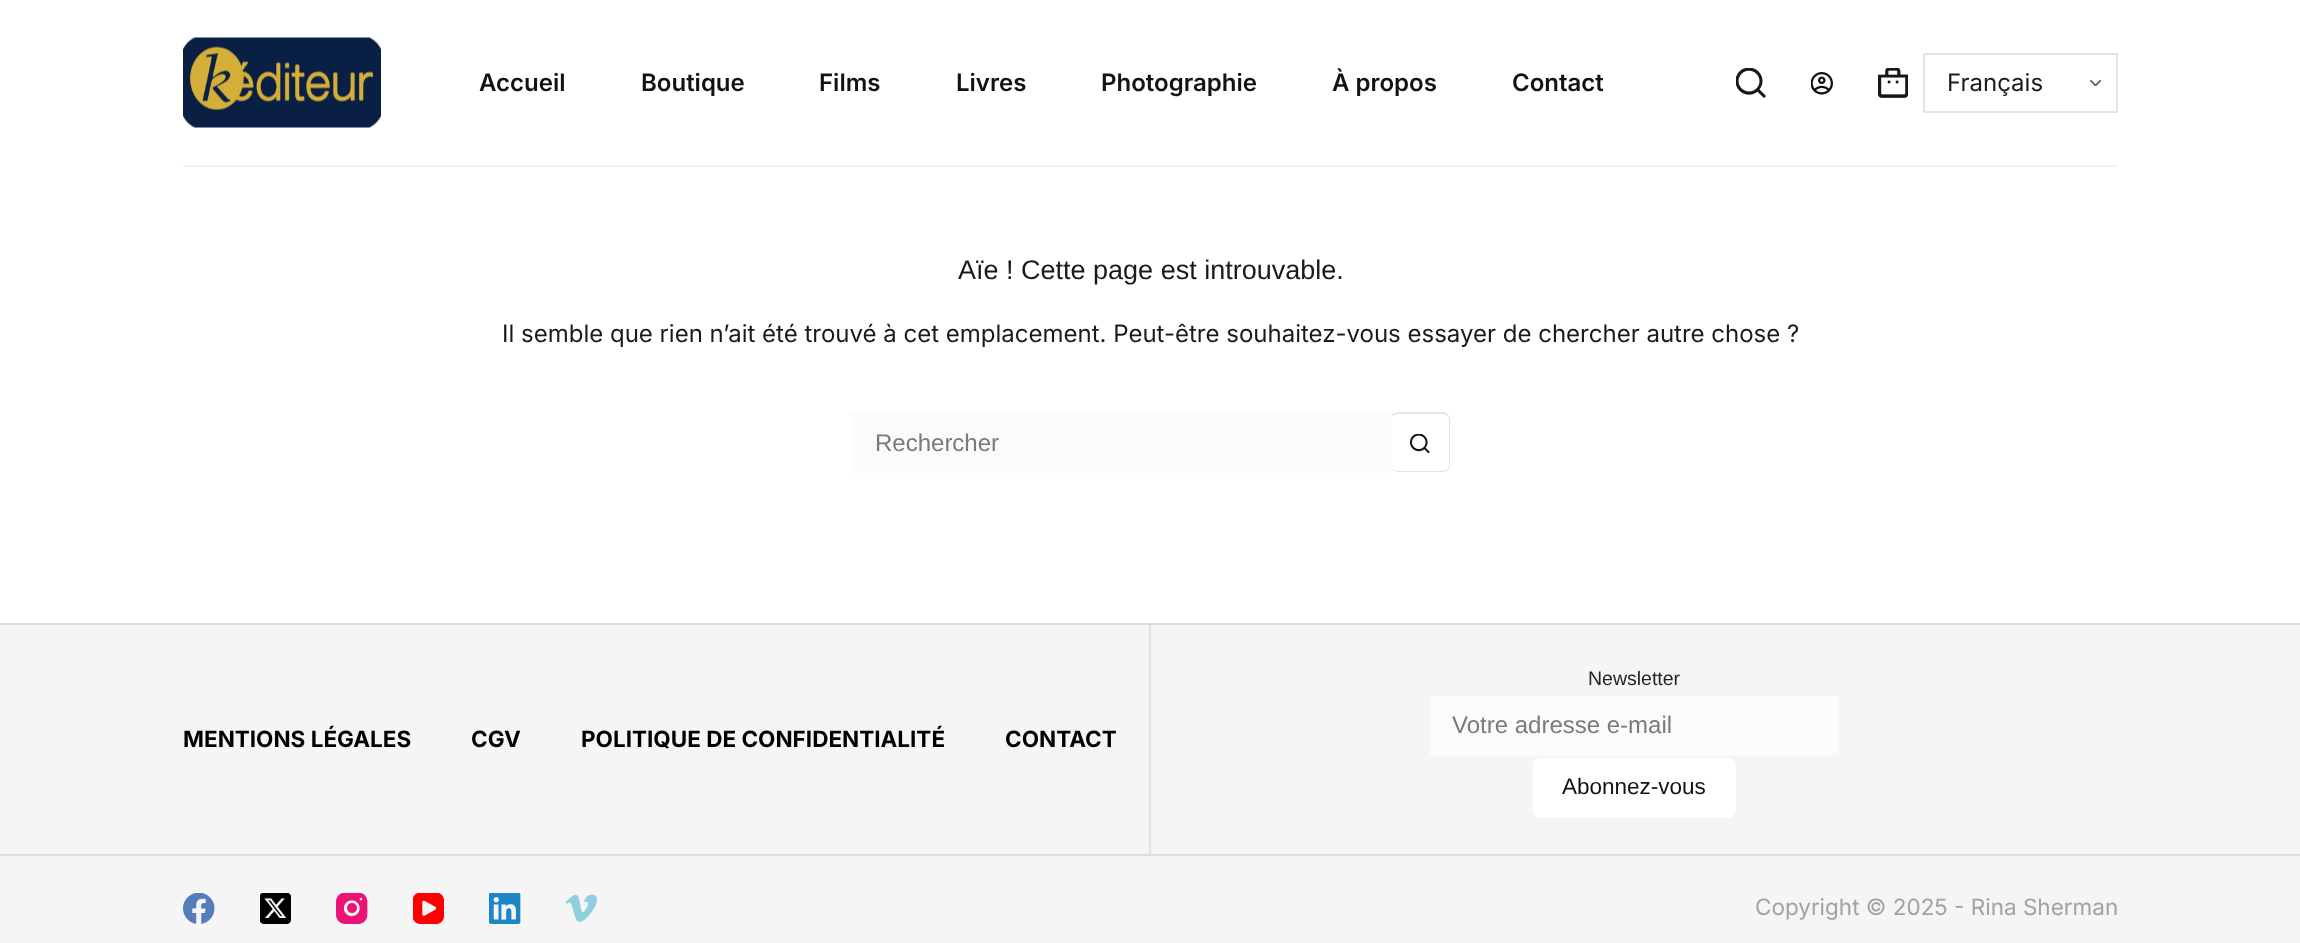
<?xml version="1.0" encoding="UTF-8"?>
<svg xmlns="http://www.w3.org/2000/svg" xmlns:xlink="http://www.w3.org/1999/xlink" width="2300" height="943">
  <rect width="100%" height="100%" fill="#ffffff" />
  <rect x="183" y="165" width="1935" height="2" fill="#f2f2f2" />
  <image x="183" y="37" width="198" height="91" xlink:href="image1.png" />
  <image x="1736" y="68" width="30" height="30" xlink:href="image2.png" />
  <image x="1811" y="72" width="22" height="23" xlink:href="image3.png" />
  <image x="1878" y="68" width="30" height="30" xlink:href="image4.png" />
  <image x="2090" y="80" width="12" height="6" xlink:href="image5.png" />
  <rect x="1924" y="54" width="193" height="58" fill="none" stroke="#e0e5eb" stroke-width="2" />
  <rect x="851" y="413" width="540" height="60" fill="#fbfcfa" />
  <path d="M 1398 412 h 45 c 4 0 7 4 7 8 v 45 c 0 4 -3 7 -7 7 h -45 c -4 0 -8 -3 -8 -7 v -45 c 0 -4 4 -8 8 -8 z m 0 2 h 45 c 3 0 6 3 6 6 v 45 c 0 3 -3 6 -6 6 h -45 c -4 0 -8 -3 -8 -6 v -45 c 0 -3 4 -6 8 -6 z" fill="#e0e5eb" fill-rule="evenodd" />
  <image x="1410" y="434" width="20" height="19" xlink:href="image6.png" />
  <rect y="625" width="2300" height="229" fill="#f5f5f5" />
  <rect x="1149" y="624" width="2" height="230" fill="#e2e2e2" />
  <rect y="623" width="2300" height="2" fill="#dddddd" />
  <rect x="1149" y="624" width="2" height="1" fill="#cccccc" />
  <rect x="1430" y="696" width="409" height="60" fill="#fbfcfa" />
  <rect x="1533" y="758" width="203" height="60" rx="8" fill="#ffffff" />
  <rect y="856" width="2300" height="87" fill="#f5f5f5" />
  <rect y="854" width="2300" height="2" fill="#dddddd" />
  <image x="183" y="893" width="32" height="31" xlink:href="image7.png" />
  <image x="260" y="893" width="31" height="31" xlink:href="image8.png" />
  <image x="336" y="893" width="32" height="31" xlink:href="image9.png" />
  <image x="413" y="893" width="31" height="31" xlink:href="image10.png" />
  <image x="489" y="893" width="32" height="31" xlink:href="image11.png" />
  <image x="566" y="894" width="31" height="28" xlink:href="image12.png" />
  <text x="479" y="91" style="font-family: Inter; font-size: 24px; font-weight: 600; fill: #121212">Accueil</text>
  <text x="641" y="91" style="font-family: Inter; font-size: 24px; font-weight: 600; fill: #121212">Boutique</text>
  <text x="819" y="91" style="font-family: Inter; font-size: 24px; font-weight: 600; fill: #121212">Films</text>
  <text x="956" y="91" style="font-family: Inter; font-size: 24px; font-weight: 600; fill: #121212">Livres</text>
  <text x="1101" y="91" style="font-family: Inter; font-size: 24px; font-weight: 600; fill: #121212">Photographie</text>
  <text x="1332" y="91" style="font-family: Inter; font-size: 24px; font-weight: 600; fill: #121212">À propos</text>
  <text x="1512" y="91" style="font-family: Inter; font-size: 24px; font-weight: 600; fill: #121212">Contact</text>
  <text x="1947" y="91" style="font-family: Inter; font-size: 24px; fill: #1a1a1a">Français</text>
  <text x="958" y="279" style="font-family: Liberation Sans; font-size: 27px; fill: #1a1a1a">Aïe ! Cette page est introuvable.</text>
  <text x="502" y="342" style="font-family: Inter; font-size: 24px; fill: #1a1a1a">Il semble que rien n’ait été trouvé à cet emplacement. Peut-être souhaitez-vous essayer de chercher autre chose ?</text>
  <text x="875" y="451" style="font-family: Liberation Sans; font-size: 24px; fill: #797a79">Rechercher</text>
  <text x="183" y="747" style="font-family: Inter; font-size: 22.5px; font-weight: bold; fill: #000000">MENTIONS LÉGALES</text>
  <text x="471" y="747" style="font-family: Inter; font-size: 22.5px; font-weight: bold; fill: #000000">CGV</text>
  <text x="581" y="747" style="font-family: Inter; font-size: 22.5px; font-weight: bold; fill: #000000">POLITIQUE DE CONFIDENTIALITÉ</text>
  <text x="1005" y="747" style="font-family: Inter; font-size: 22.5px; font-weight: bold; fill: #000000">CONTACT</text>
  <text x="1588" y="685" style="font-family: Liberation Sans; font-size: 19.5px; fill: #232323">Newsletter</text>
  <text x="1452" y="733" style="font-family: Liberation Sans; font-size: 24px; fill: #797a79">Votre adresse e-mail</text>
  <text x="1562" y="794" style="font-family: Liberation Sans; font-size: 22.5px; fill: #121212">Abonnez-vous</text>
  <text x="1755" y="915" style="font-family: Inter; font-size: 22.5px; fill: #a2a2a2">Copyright © 2025 - Rina Sherman</text>
</svg>
